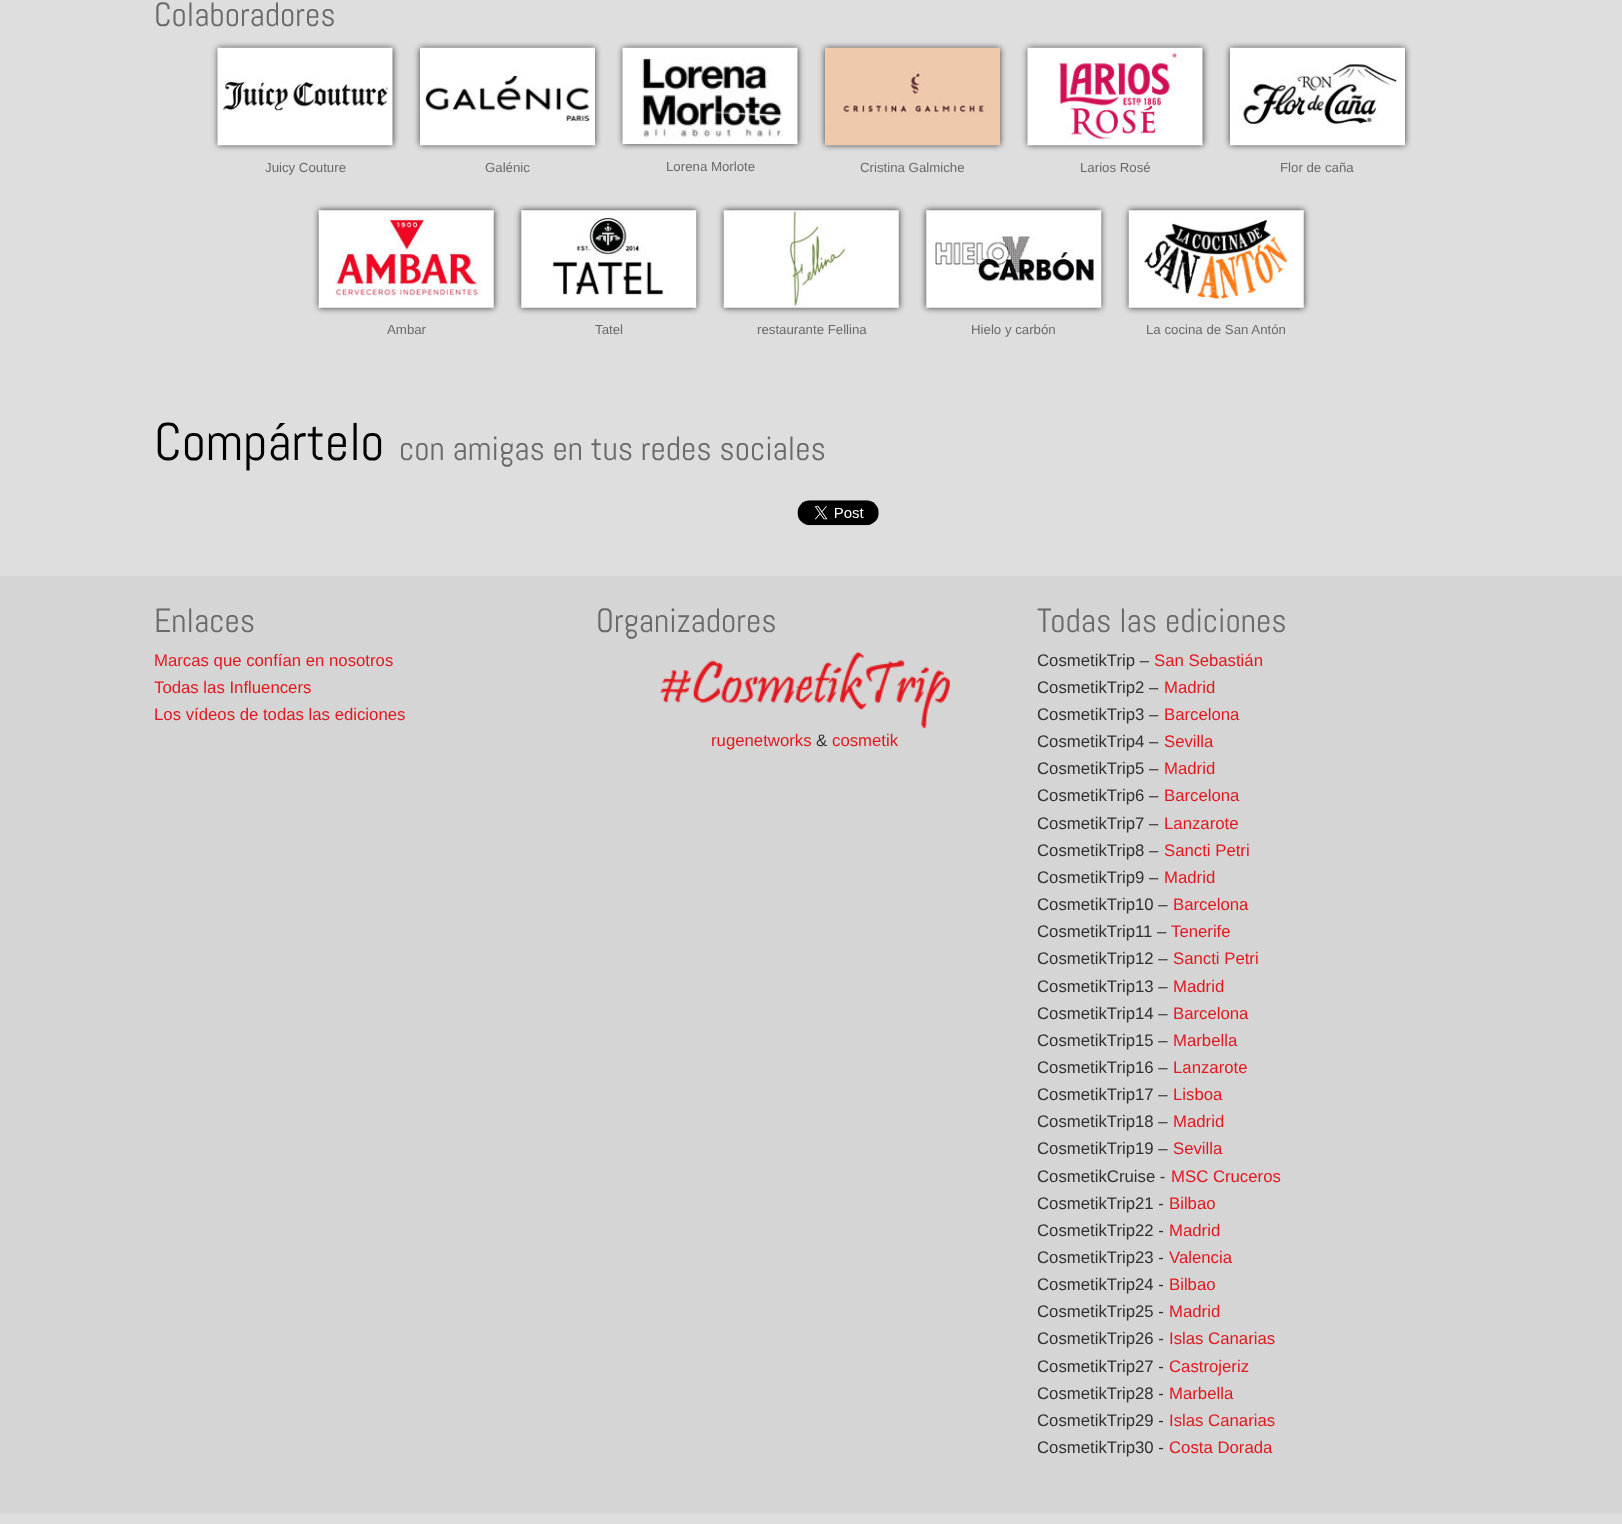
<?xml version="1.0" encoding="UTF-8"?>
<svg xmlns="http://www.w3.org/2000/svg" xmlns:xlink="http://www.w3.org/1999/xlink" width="1622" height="1524">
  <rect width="100%" height="100%" fill="#dedede" />
  <rect x="218" y="48" width="175" height="97" fill="#000000" fill-opacity="0.75" filter="blur(3px)" />
  <image x="217" y="47" width="176" height="99" xlink:href="image1.png" />
  <rect x="420" y="48" width="175" height="97" fill="#000000" fill-opacity="0.75" filter="blur(3px)" />
  <image x="420" y="47" width="175" height="99" xlink:href="image2.png" />
  <rect x="623" y="48" width="175" height="96" fill="#000000" fill-opacity="0.75" filter="blur(3px)" />
  <image x="622" y="47" width="176" height="97" xlink:href="image3.png" />
  <rect x="825" y="48" width="175" height="97" fill="#000000" fill-opacity="0.75" filter="blur(3px)" />
  <image x="825" y="47" width="175" height="99" xlink:href="image4.png" />
  <rect x="1028" y="48" width="175" height="97" fill="#000000" fill-opacity="0.75" filter="blur(3px)" />
  <image x="1027" y="47" width="176" height="99" xlink:href="image5.png" />
  <rect x="1230" y="48" width="175" height="97" fill="#000000" fill-opacity="0.75" filter="blur(3px)" />
  <image x="1230" y="47" width="175" height="99" xlink:href="image6.png" />
  <rect x="319" y="210" width="175" height="98" fill="#000000" fill-opacity="0.75" filter="blur(3px)" />
  <image x="318" y="210" width="176" height="98" xlink:href="image7.png" />
  <rect x="521" y="210" width="175" height="98" fill="#000000" fill-opacity="0.75" filter="blur(3px)" />
  <image x="521" y="210" width="176" height="98" xlink:href="image8.png" />
  <rect x="724" y="210" width="175" height="98" fill="#000000" fill-opacity="0.75" filter="blur(3px)" />
  <image x="723" y="210" width="176" height="98" xlink:href="image9.png" />
  <rect x="926" y="210" width="175" height="98" fill="#000000" fill-opacity="0.75" filter="blur(3px)" />
  <image x="926" y="210" width="176" height="98" xlink:href="image10.png" />
  <rect x="1129" y="210" width="175" height="98" fill="#000000" fill-opacity="0.75" filter="blur(3px)" />
  <image x="1128" y="210" width="176" height="98" xlink:href="image11.png" />
  <image x="797" y="500" width="82" height="26" xlink:href="image12.png" />
  <rect y="576" width="1622" height="938" fill="#d5d5d5" />
  <image x="660" y="651" width="290" height="78" xlink:href="image13.png" />
  <text x="154" y="26" style="font-family: Abel; font-size: 33.6px; fill: #696969">Colaboradores</text>
  <text x="265" y="172" style="font-family: Liberation Sans; font-size: 13.25px; fill: #696969">Juicy Couture</text>
  <text x="485" y="172" style="font-family: Liberation Sans; font-size: 13.25px; fill: #696969">Galénic</text>
  <text x="666" y="171" style="font-family: Liberation Sans; font-size: 13.25px; fill: #696969">Lorena Morlote</text>
  <text x="860" y="172" style="font-family: Liberation Sans; font-size: 13.25px; fill: #696969">Cristina Galmiche</text>
  <text x="1080" y="172" style="font-family: Liberation Sans; font-size: 13.25px; fill: #696969">Larios Rosé</text>
  <text x="1280" y="172" style="font-family: Liberation Sans; font-size: 13.25px; fill: #696969">Flor de caña</text>
  <text x="387" y="334" style="font-family: Liberation Sans; font-size: 13.25px; fill: #696969">Ambar</text>
  <text x="595" y="334" style="font-family: Liberation Sans; font-size: 13.25px; fill: #696969">Tatel</text>
  <text x="757" y="334" style="font-family: Liberation Sans; font-size: 13.25px; fill: #696969">restaurante Fellina</text>
  <text x="971" y="334" style="font-family: Liberation Sans; font-size: 13.25px; fill: #696969">Hielo y carbón</text>
  <text x="1146" y="334" style="font-family: Liberation Sans; font-size: 13.25px; fill: #696969">La cocina de San Antón</text>
  <text x="154" y="460" style="font-family: Abel; font-size: 53px; fill: #010101">Compártelo</text>
  <text x="399" y="460" style="font-family: Abel; font-size: 33.6px; fill: #696969">con amigas en tus redes sociales</text>
  <text x="154" y="632" style="font-family: Abel; font-size: 33.6px; fill: #696969">Enlaces</text>
  <text x="154" y="666" style="font-family: Liberation Sans; font-size: 16.75px; fill: #e1181f">Marcas que confían en nosotros</text>
  <text x="154" y="693" style="font-family: Liberation Sans; font-size: 16.75px; fill: #e1181f">Todas las Influencers</text>
  <text x="154" y="720" style="font-family: Liberation Sans; font-size: 16.75px; fill: #e1181f">Los vídeos de todas las ediciones</text>
  <text x="596" y="632" style="font-family: Abel; font-size: 33.6px; fill: #696969">Organizadores</text>
  <text x="711" y="746" style="font-family: Liberation Sans; font-size: 16.75px; fill: #e1181f">rugenetworks</text>
  <text x="816" y="746" style="font-family: Liberation Sans; font-size: 16.75px; fill: #303030">&amp;</text>
  <text x="832" y="746" style="font-family: Liberation Sans; font-size: 16.75px; fill: #e1181f">cosmetik</text>
  <text x="1037" y="632" style="font-family: Abel; font-size: 33.6px; fill: #696969">Todas las ediciones</text>
  <text x="1037" y="666" style="font-family: Liberation Sans; font-size: 16.75px; fill: #303030">CosmetikTrip –</text>
  <text x="1154" y="666" style="font-family: Liberation Sans; font-size: 16.75px; fill: #e1181f">San Sebastián</text>
  <text x="1037" y="693" style="font-family: Liberation Sans; font-size: 16.75px; fill: #303030">CosmetikTrip2 –</text>
  <text x="1164" y="693" style="font-family: Liberation Sans; font-size: 16.75px; fill: #e1181f">Madrid</text>
  <text x="1037" y="720" style="font-family: Liberation Sans; font-size: 16.75px; fill: #303030">CosmetikTrip3 –</text>
  <text x="1164" y="720" style="font-family: Liberation Sans; font-size: 16.75px; fill: #e1181f">Barcelona</text>
  <text x="1037" y="747" style="font-family: Liberation Sans; font-size: 16.75px; fill: #303030">CosmetikTrip4 –</text>
  <text x="1164" y="747" style="font-family: Liberation Sans; font-size: 16.75px; fill: #e1181f">Sevilla</text>
  <text x="1037" y="774" style="font-family: Liberation Sans; font-size: 16.75px; fill: #303030">CosmetikTrip5 –</text>
  <text x="1164" y="774" style="font-family: Liberation Sans; font-size: 16.75px; fill: #e1181f">Madrid</text>
  <text x="1037" y="801" style="font-family: Liberation Sans; font-size: 16.75px; fill: #303030">CosmetikTrip6 –</text>
  <text x="1164" y="801" style="font-family: Liberation Sans; font-size: 16.75px; fill: #e1181f">Barcelona</text>
  <text x="1037" y="829" style="font-family: Liberation Sans; font-size: 16.75px; fill: #303030">CosmetikTrip7 –</text>
  <text x="1164" y="829" style="font-family: Liberation Sans; font-size: 16.75px; fill: #e1181f">Lanzarote</text>
  <text x="1037" y="856" style="font-family: Liberation Sans; font-size: 16.75px; fill: #303030">CosmetikTrip8 –</text>
  <text x="1164" y="856" style="font-family: Liberation Sans; font-size: 16.75px; fill: #e1181f">Sancti Petri</text>
  <text x="1037" y="883" style="font-family: Liberation Sans; font-size: 16.75px; fill: #303030">CosmetikTrip9 –</text>
  <text x="1164" y="883" style="font-family: Liberation Sans; font-size: 16.75px; fill: #e1181f">Madrid</text>
  <text x="1037" y="910" style="font-family: Liberation Sans; font-size: 16.75px; fill: #303030">CosmetikTrip10 –</text>
  <text x="1173" y="910" style="font-family: Liberation Sans; font-size: 16.75px; fill: #e1181f">Barcelona</text>
  <text x="1037" y="937" style="font-family: Liberation Sans; font-size: 16.75px; fill: #303030">CosmetikTrip11 –</text>
  <text x="1171" y="937" style="font-family: Liberation Sans; font-size: 16.75px; fill: #e1181f">Tenerife</text>
  <text x="1037" y="964" style="font-family: Liberation Sans; font-size: 16.75px; fill: #303030">CosmetikTrip12 –</text>
  <text x="1173" y="964" style="font-family: Liberation Sans; font-size: 16.75px; fill: #e1181f">Sancti Petri</text>
  <text x="1037" y="992" style="font-family: Liberation Sans; font-size: 16.75px; fill: #303030">CosmetikTrip13 –</text>
  <text x="1173" y="992" style="font-family: Liberation Sans; font-size: 16.75px; fill: #e1181f">Madrid</text>
  <text x="1037" y="1019" style="font-family: Liberation Sans; font-size: 16.75px; fill: #303030">CosmetikTrip14 –</text>
  <text x="1173" y="1019" style="font-family: Liberation Sans; font-size: 16.75px; fill: #e1181f">Barcelona</text>
  <text x="1037" y="1046" style="font-family: Liberation Sans; font-size: 16.75px; fill: #303030">CosmetikTrip15 –</text>
  <text x="1173" y="1046" style="font-family: Liberation Sans; font-size: 16.75px; fill: #e1181f">Marbella</text>
  <text x="1037" y="1073" style="font-family: Liberation Sans; font-size: 16.75px; fill: #303030">CosmetikTrip16 –</text>
  <text x="1173" y="1073" style="font-family: Liberation Sans; font-size: 16.75px; fill: #e1181f">Lanzarote</text>
  <text x="1037" y="1100" style="font-family: Liberation Sans; font-size: 16.75px; fill: #303030">CosmetikTrip17 –</text>
  <text x="1173" y="1100" style="font-family: Liberation Sans; font-size: 16.75px; fill: #e1181f">Lisboa</text>
  <text x="1037" y="1127" style="font-family: Liberation Sans; font-size: 16.75px; fill: #303030">CosmetikTrip18 –</text>
  <text x="1173" y="1127" style="font-family: Liberation Sans; font-size: 16.75px; fill: #e1181f">Madrid</text>
  <text x="1037" y="1154" style="font-family: Liberation Sans; font-size: 16.75px; fill: #303030">CosmetikTrip19 –</text>
  <text x="1173" y="1154" style="font-family: Liberation Sans; font-size: 16.75px; fill: #e1181f">Sevilla</text>
  <text x="1037" y="1182" style="font-family: Liberation Sans; font-size: 16.75px; fill: #303030">CosmetikCruise -</text>
  <text x="1171" y="1182" style="font-family: Liberation Sans; font-size: 16.75px; fill: #e1181f">MSC Cruceros</text>
  <text x="1037" y="1209" style="font-family: Liberation Sans; font-size: 16.75px; fill: #303030">CosmetikTrip21 -</text>
  <text x="1169" y="1209" style="font-family: Liberation Sans; font-size: 16.75px; fill: #e1181f">Bilbao</text>
  <text x="1037" y="1236" style="font-family: Liberation Sans; font-size: 16.75px; fill: #303030">CosmetikTrip22 -</text>
  <text x="1169" y="1236" style="font-family: Liberation Sans; font-size: 16.75px; fill: #e1181f">Madrid</text>
  <text x="1037" y="1263" style="font-family: Liberation Sans; font-size: 16.75px; fill: #303030">CosmetikTrip23 -</text>
  <text x="1169" y="1263" style="font-family: Liberation Sans; font-size: 16.75px; fill: #e1181f">Valencia</text>
  <text x="1037" y="1290" style="font-family: Liberation Sans; font-size: 16.75px; fill: #303030">CosmetikTrip24 -</text>
  <text x="1169" y="1290" style="font-family: Liberation Sans; font-size: 16.75px; fill: #e1181f">Bilbao</text>
  <text x="1037" y="1317" style="font-family: Liberation Sans; font-size: 16.75px; fill: #303030">CosmetikTrip25 -</text>
  <text x="1169" y="1317" style="font-family: Liberation Sans; font-size: 16.75px; fill: #e1181f">Madrid</text>
  <text x="1037" y="1344" style="font-family: Liberation Sans; font-size: 16.75px; fill: #303030">CosmetikTrip26 -</text>
  <text x="1169" y="1344" style="font-family: Liberation Sans; font-size: 16.75px; fill: #e1181f">Islas Canarias</text>
  <text x="1037" y="1372" style="font-family: Liberation Sans; font-size: 16.75px; fill: #303030">CosmetikTrip27 -</text>
  <text x="1169" y="1372" style="font-family: Liberation Sans; font-size: 16.75px; fill: #e1181f">Castrojeriz</text>
  <text x="1037" y="1399" style="font-family: Liberation Sans; font-size: 16.75px; fill: #303030">CosmetikTrip28 -</text>
  <text x="1169" y="1399" style="font-family: Liberation Sans; font-size: 16.75px; fill: #e1181f">Marbella</text>
  <text x="1037" y="1426" style="font-family: Liberation Sans; font-size: 16.75px; fill: #303030">CosmetikTrip29 -</text>
  <text x="1169" y="1426" style="font-family: Liberation Sans; font-size: 16.75px; fill: #e1181f">Islas Canarias</text>
  <text x="1037" y="1453" style="font-family: Liberation Sans; font-size: 16.75px; fill: #303030">CosmetikTrip30 -</text>
  <text x="1169" y="1453" style="font-family: Liberation Sans; font-size: 16.75px; fill: #e1181f">Costa Dorada</text>
</svg>
